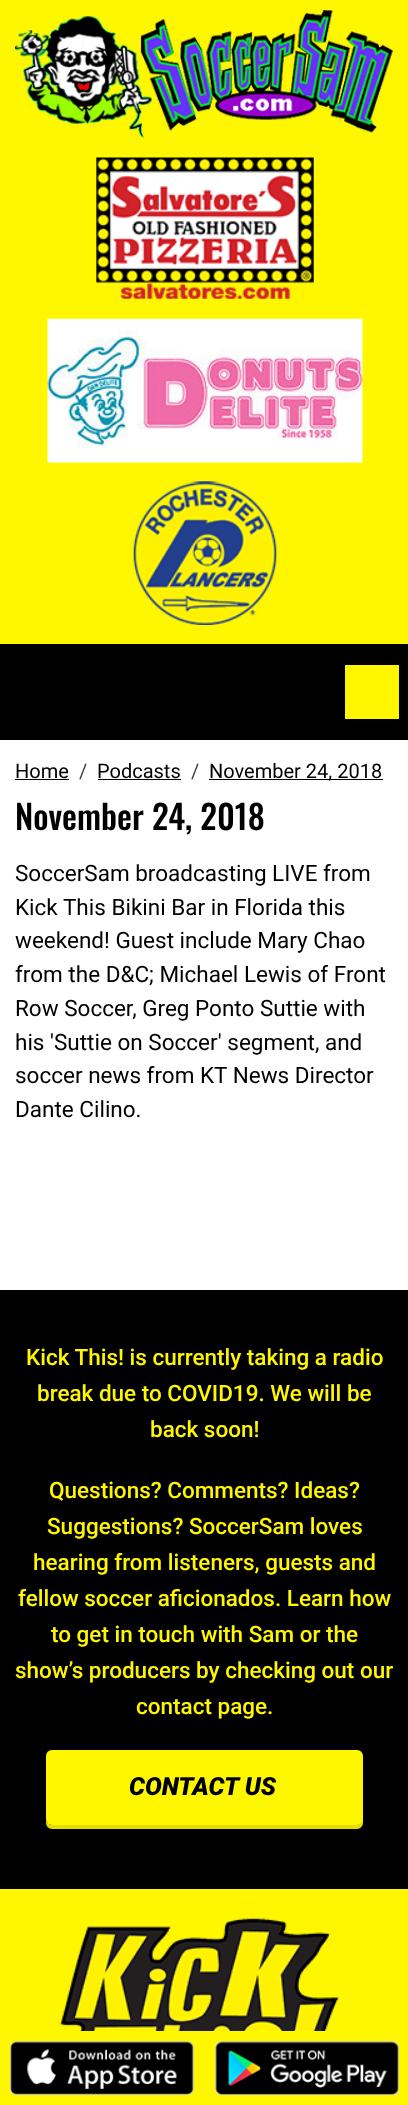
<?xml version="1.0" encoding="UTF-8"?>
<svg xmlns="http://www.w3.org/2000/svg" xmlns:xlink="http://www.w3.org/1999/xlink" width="408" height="2105">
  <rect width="100%" height="100%" fill="#ffffff" />
  <rect width="408" height="644" fill="#fff700" />
  <image x="15" y="10" width="378" height="128" xlink:href="image1.png" />
  <image x="96" y="157" width="218" height="142" xlink:href="image2.png" />
  <image x="47" y="318" width="316" height="145" xlink:href="image3.png" />
  <image x="133" y="481" width="144" height="144" xlink:href="image4.png" />
  <rect y="644" width="408" height="96" fill="#000000" />
  <rect x="345" y="665" width="54" height="54" fill="#fff700" />
  <rect x="15" y="779" width="54" height="1" fill="#000000" />
  <rect x="98" y="779" width="83" height="1" fill="#000000" />
  <rect x="209" y="779" width="174" height="1" fill="#000000" />
  <rect y="1290" width="408" height="599" fill="#000000" />
  <path d="M 46 1758 v 65 c 0 3 3 6 6 6 h 305 c 3 0 6 -3 6 -6 v -63 l -1 -2 v 61 c 0 3 -2 6 -6 6 h -304 c -3 0 -6 -3 -6 -6 z" fill="#e5de00" />
  <rect x="46" y="1750" width="317" height="75" rx="6" fill="#fff700" />
  <rect y="1889" width="408" height="216" fill="#fff700" />
  <image x="60" y="1918" width="279" height="113" xlink:href="image5.png" />
  <image x="10" y="2041" width="184" height="54" xlink:href="image6.png" />
  <image x="215" y="2041" width="184" height="54" xlink:href="image7.png" />
  <text x="15" y="778" style="font-family: Roboto; font-size: 20px; fill: #000000">Home</text>
  <text x="79" y="778" style="font-family: Roboto; font-size: 20px; fill: #404040">/</text>
  <text x="97" y="778" style="font-family: Roboto; font-size: 20px; fill: #000000">Podcasts</text>
  <text x="191" y="778" style="font-family: Roboto; font-size: 20px; fill: #404040">/</text>
  <text x="209" y="778" style="font-family: Roboto; font-size: 20px; fill: #000000">November 24, 2018</text>
  <text x="15" y="830" style="font-family: Oswald; font-size: 33.5px; font-weight: 500; fill: #000000">November 24, 2018</text>
  <text x="15" y="881" style="font-family: Roboto; font-size: 22.5px; fill: #000000">SoccerSam broadcasting LIVE from</text>
  <text x="15" y="915" style="font-family: Roboto; font-size: 22.5px; fill: #000000">Kick This Bikini Bar in Florida this</text>
  <text x="15" y="948" style="font-family: Roboto; font-size: 22.5px; fill: #000000">weekend! Guest include Mary Chao</text>
  <text x="15" y="982" style="font-family: Roboto; font-size: 22.5px; fill: #000000">from the D&amp;C; Michael Lewis of Front</text>
  <text x="15" y="1016" style="font-family: Roboto; font-size: 22.5px; fill: #000000">Row Soccer, Greg Ponto Suttie with</text>
  <text x="15" y="1050" style="font-family: Roboto; font-size: 22.5px; fill: #000000">his 'Suttie on Soccer' segment, and</text>
  <text x="15" y="1083" style="font-family: Roboto; font-size: 22.5px; fill: #000000">soccer news from KT News Director</text>
  <text x="15" y="1117" style="font-family: Roboto; font-size: 22.5px; fill: #000000">Dante Cilino.</text>
  <text x="26" y="1365" style="font-family: Roboto; font-size: 22.5px; font-weight: 500; fill: #fff700">Kick This! is currently taking a radio</text>
  <text x="37" y="1401" style="font-family: Roboto; font-size: 22.5px; font-weight: 500; fill: #fff700">break due to COVID19. We will be</text>
  <text x="150" y="1437" style="font-family: Roboto; font-size: 22.5px; font-weight: 500; fill: #fff700">back soon!</text>
  <text x="49" y="1498" style="font-family: Roboto; font-size: 22.5px; font-weight: 500; fill: #fff700">Questions? Comments? Ideas?</text>
  <text x="47" y="1534" style="font-family: Roboto; font-size: 22.5px; font-weight: 500; fill: #fff700">Suggestions? SoccerSam loves</text>
  <text x="33" y="1570" style="font-family: Roboto; font-size: 22.5px; font-weight: 500; fill: #fff700">hearing from listeners, guests and</text>
  <text x="18" y="1606" style="font-family: Roboto; font-size: 22.5px; font-weight: 500; fill: #fff700">fellow soccer aficionados. Learn how</text>
  <text x="51" y="1642" style="font-family: Roboto; font-size: 22.5px; font-weight: 500; fill: #fff700">to get in touch with Sam or the</text>
  <text x="15" y="1678" style="font-family: Roboto; font-size: 22.5px; font-weight: 500; fill: #fff700">show’s producers by checking out our</text>
  <text x="136" y="1714" style="font-family: Roboto; font-size: 22.5px; font-weight: 500; fill: #fff700">contact page.</text>
  <text x="129" y="1795" style="font-family: Roboto; font-size: 25px; font-weight: 900; font-style: italic; fill: #000000">CONTACT US</text>
</svg>
